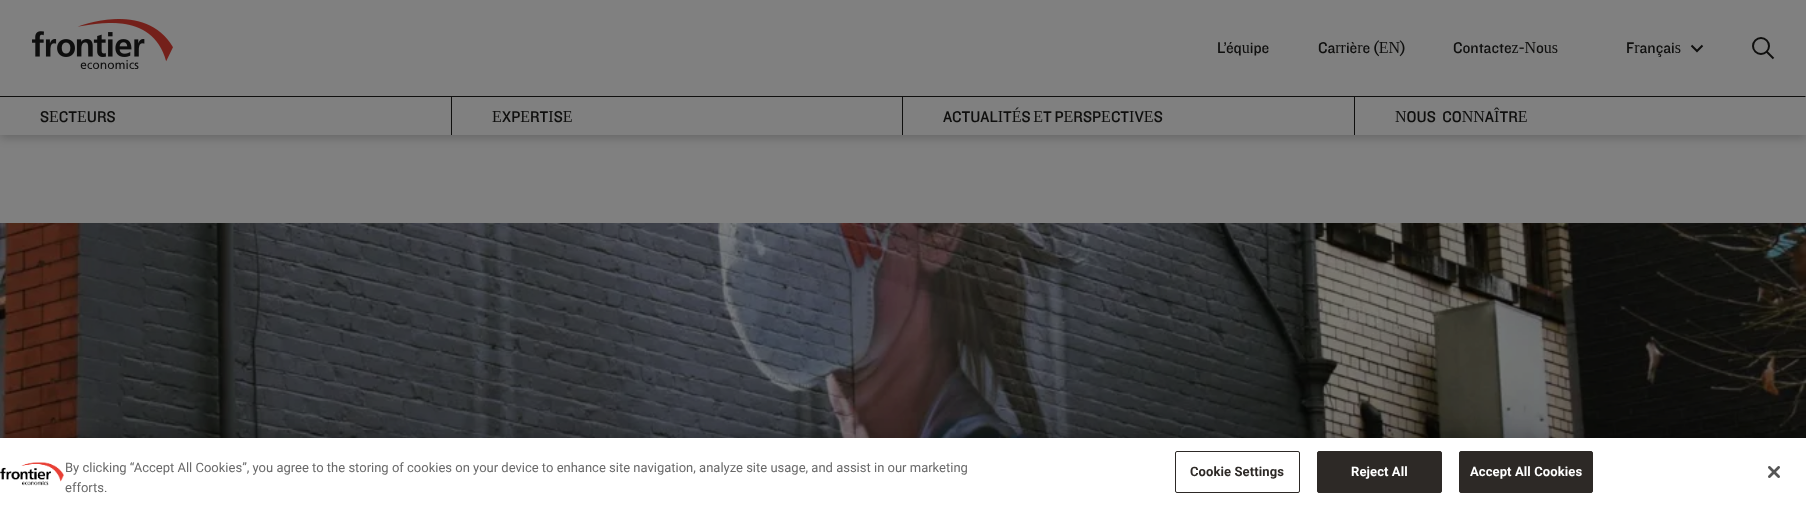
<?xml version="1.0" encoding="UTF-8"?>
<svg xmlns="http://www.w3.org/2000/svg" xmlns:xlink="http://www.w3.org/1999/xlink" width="1806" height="509">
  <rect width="100%" height="100%" fill="#808080" />
  <rect y="3" width="1806" height="135" fill="#000000" fill-opacity="0.2" filter="blur(5px)" />
  <rect width="1806" height="135" fill="#808080" />
  <image x="32" y="19" width="141" height="50" xlink:href="image1.png" />
  <path d="M 1691.5 45.5 l 5.5 5.5 l 5.5 -5.5" fill="none" stroke="#0f0f0e" stroke-width="2" />
  <circle cx="1761" cy="46" r="8" fill="none" stroke="#0f0f0e" stroke-width="2" />
  <path d="M 1766.5 51.5 l 7 7" fill="none" stroke="#0f0f0e" stroke-width="2" />
  <rect y="96" width="1355" height="1" fill="#0f0f0e" />
  <rect x="451" y="96" width="1" height="39" fill="#0f0f0e" />
  <rect x="902" y="96" width="1" height="39" fill="#0f0f0e" />
  <rect x="1354" y="96" width="1" height="39" fill="#0f0f0e" />
  <path d="M 1355 96 h 451 l -1 1 h -450 z" fill="#0f0f0e" />
  <image x="0" y="223" width="1806" height="215" xlink:href="image2.png" />
  <rect y="438" width="1806" height="71" fill="#000000" fill-opacity="0.2" filter="blur(9px)" />
  <rect y="438" width="1806" height="71" fill="#ffffff" />
  <image x="0" y="462" width="64" height="24" xlink:href="image3.png" />
  <rect x="1175.5" y="451.5" width="124" height="41" rx="1.5" fill="none" stroke="#2d2926" />
  <rect x="1317.5" y="451.5" width="124" height="41" rx="1.5" fill="#2d2926" stroke="#2d2926" />
  <rect x="1459.5" y="451.5" width="133" height="41" rx="1.5" fill="#2d2926" stroke="#2d2926" />
  <image x="1768" y="466" width="12" height="12" xlink:href="image4.png" />
  <text x="1217" y="53" style="font-family: 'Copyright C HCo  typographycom'; font-size: 16px; font-weight: 300; fill: #0f0f0e">L’équipe</text>
  <text x="1318" y="53" word-spacing="-1" style="font-family: 'Copyright C HCo  typographycom'; font-size: 16px; font-weight: 300; fill: #0f0f0e">Carrière (EN)</text>
  <text x="1453" y="53" style="font-family: 'Copyright C HCo  typographycom'; font-size: 16px; font-weight: 300; fill: #0f0f0e">Contactez-Nous</text>
  <text x="1626" y="53" style="font-family: 'Copyright C HCo  typographycom'; font-size: 16px; font-weight: 300; fill: #0f0f0e">Français</text>
  <text x="40" y="122" style="font-family: 'Copyright C HCo  typographycom'; font-size: 16px; font-weight: 300; fill: #0f0f0e">SECTEURS</text>
  <text x="492" y="122" style="font-family: 'Copyright C HCo  typographycom'; font-size: 16px; font-weight: 300; fill: #0f0f0e">EXPERTISE</text>
  <text x="943" y="122" word-spacing="-1" style="font-family: 'Copyright C HCo  typographycom'; font-size: 16px; font-weight: 300; fill: #0f0f0e">ACTUALITÉS ET PERSPECTIVES</text>
  <text x="1395" y="122" word-spacing="3" style="font-family: 'Copyright C HCo  typographycom'; font-size: 16px; font-weight: 300; fill: #0f0f0e">NOUS CONNAÎTRE</text>
  <text x="65" y="472" style="font-family: Roboto; font-size: 13px; fill: #696969">By clicking “Accept All Cookies”, you agree to the storing of cookies on your device to enhance site navigation, analyze site usage, and assist in our marketing</text>
  <text x="65" y="492" style="font-family: Roboto; font-size: 13px; fill: #696969">efforts.</text>
  <text x="1190" y="476" style="font-family: Roboto; font-size: 13px; font-weight: bold; letter-spacing: 0.1px; fill: #2d2926">Cookie Settings</text>
  <text x="1351" y="476" style="font-family: Roboto; font-size: 13px; font-weight: bold; letter-spacing: 0.1px; fill: #ffffff">Reject All</text>
  <text x="1470" y="476" style="font-family: Roboto; font-size: 13px; font-weight: bold; letter-spacing: 0.1px; fill: #ffffff">Accept All Cookies</text>
</svg>
